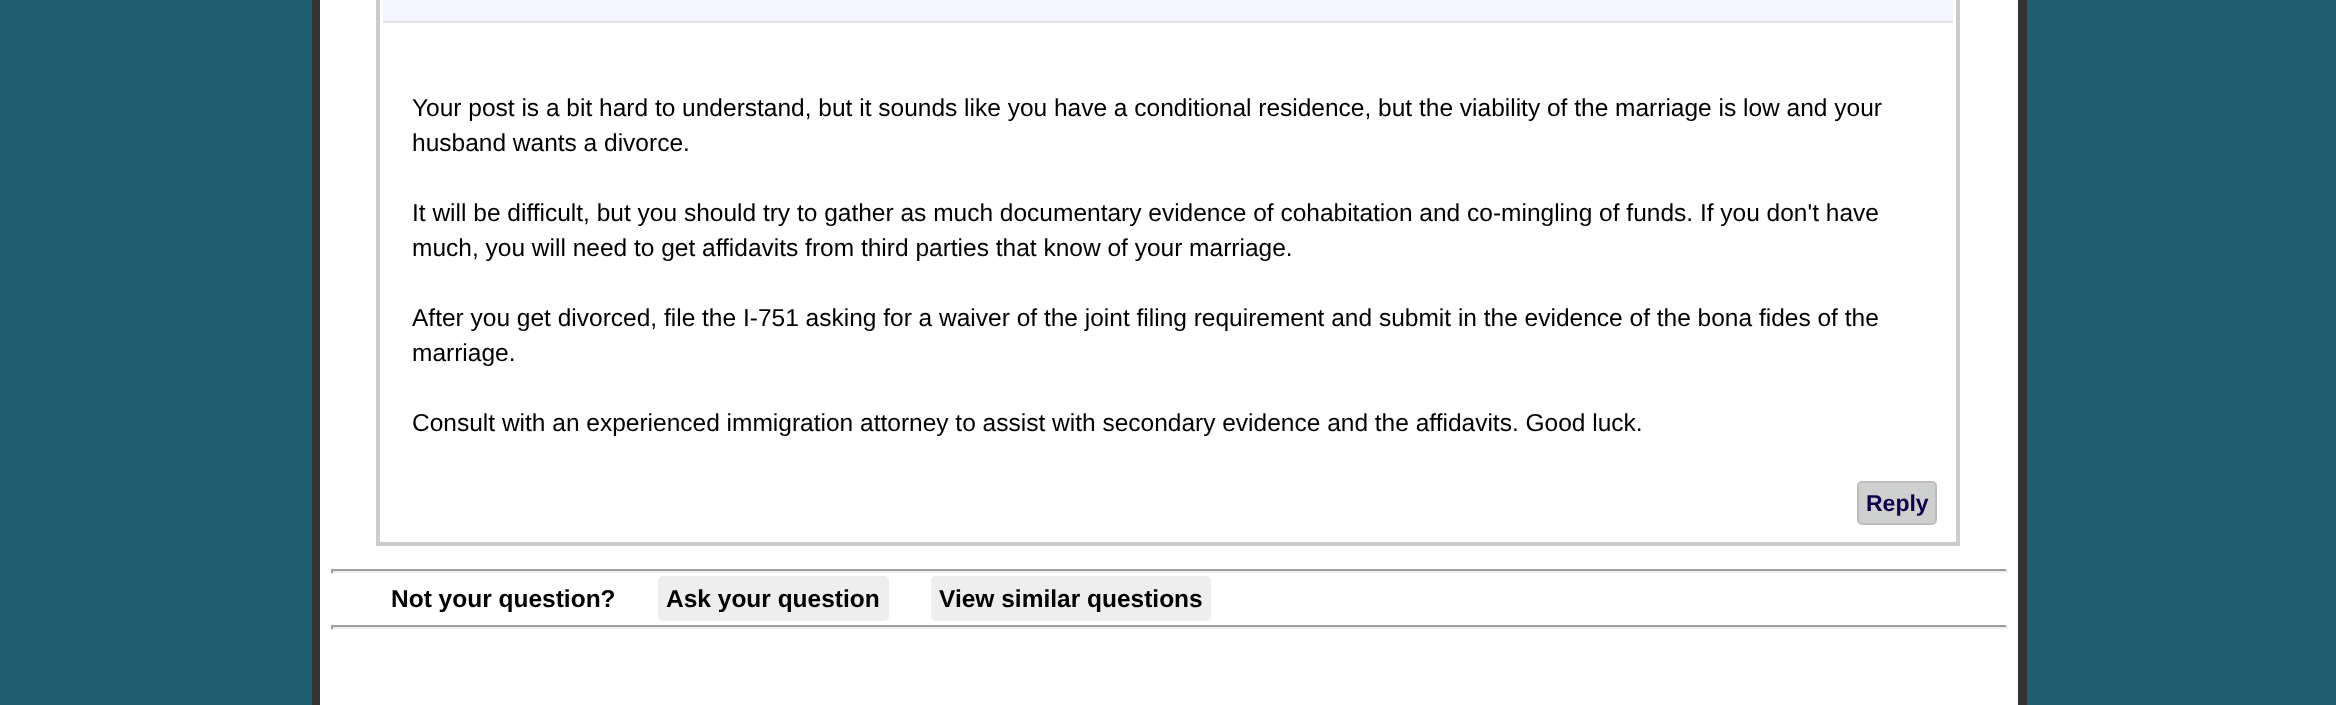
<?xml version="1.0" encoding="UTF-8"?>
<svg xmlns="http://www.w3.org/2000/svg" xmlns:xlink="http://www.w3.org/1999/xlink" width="2336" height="705">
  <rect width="100%" height="100%" fill="#215e70" />
  <rect x="320" width="1698" height="705" fill="#ffffff" />
  <rect x="2018" width="9" height="705" fill="#333333" />
  <rect x="312" width="8" height="705" fill="#333333" />
  <rect x="378" y="-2" width="1580" height="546" fill="none" stroke="#cccccc" stroke-width="4" />
  <rect x="383" width="1570" height="21" fill="#f5f5ff" />
  <rect x="383" y="21" width="1570" height="2" fill="#e0e0e9" />
  <rect x="1858" y="482" width="78" height="42" rx="4" fill="#cecfcf" stroke="#bcbebe" stroke-width="2" />
  <rect x="331" y="569" width="1676" height="2" fill="#9f9f9f" />
  <rect x="2006" y="569" width="2" height="4" fill="#eeeeee" />
  <rect x="331" y="571" width="1676" height="2" fill="#eeeeee" />
  <rect x="331" y="569" width="2" height="4" fill="#9f9f9f" />
  <rect x="658" y="576" width="231" height="45" rx="5" fill="#eeeeee" />
  <rect x="931" y="576" width="280" height="45" rx="5" fill="#eeeeee" />
  <rect x="331" y="625" width="1676" height="2" fill="#9f9f9f" />
  <rect x="2006" y="625" width="2" height="4" fill="#eeeeee" />
  <rect x="331" y="627" width="1676" height="2" fill="#eeeeee" />
  <rect x="331" y="625" width="2" height="4" fill="#9f9f9f" />
  <text x="412" y="116" style="font-family: Liberation Sans; font-size: 24.5px; fill: #000000">Your post is a bit hard to understand, but it sounds like you have a conditional residence, but the viability of the marriage is low and your</text>
  <text x="412" y="151" style="font-family: Liberation Sans; font-size: 24.5px; fill: #000000">husband wants a divorce.</text>
  <text x="412" y="221" style="font-family: Liberation Sans; font-size: 24.5px; fill: #000000">It will be difficult, but you should try to gather as much documentary evidence of cohabitation and co-mingling of funds. If you don't have</text>
  <text x="412" y="256" style="font-family: Liberation Sans; font-size: 24.5px; fill: #000000">much, you will need to get affidavits from third parties that know of your marriage.</text>
  <text x="412" y="326" style="font-family: Liberation Sans; font-size: 24.5px; fill: #000000">After you get divorced, file the I-751 asking for a waiver of the joint filing requirement and submit in the evidence of the bona fides of the</text>
  <text x="412" y="361" style="font-family: Liberation Sans; font-size: 24.5px; fill: #000000">marriage.</text>
  <text x="412" y="431" style="font-family: Liberation Sans; font-size: 24.5px; fill: #000000">Consult with an experienced immigration attorney to assist with secondary evidence and the affidavits. Good luck.</text>
  <text x="1866" y="511" style="font-family: Liberation Sans; font-size: 23px; font-weight: bold; fill: #10004b">Reply</text>
  <text x="391" y="607" style="font-family: Liberation Sans; font-size: 24.5px; font-weight: bold; fill: #000000">Not your question?</text>
  <text x="666" y="607" style="font-family: Liberation Sans; font-size: 24.5px; font-weight: bold; fill: #000000">Ask your question</text>
  <text x="939" y="607" style="font-family: Liberation Sans; font-size: 24.5px; font-weight: bold; fill: #000000">View similar questions</text>
</svg>
